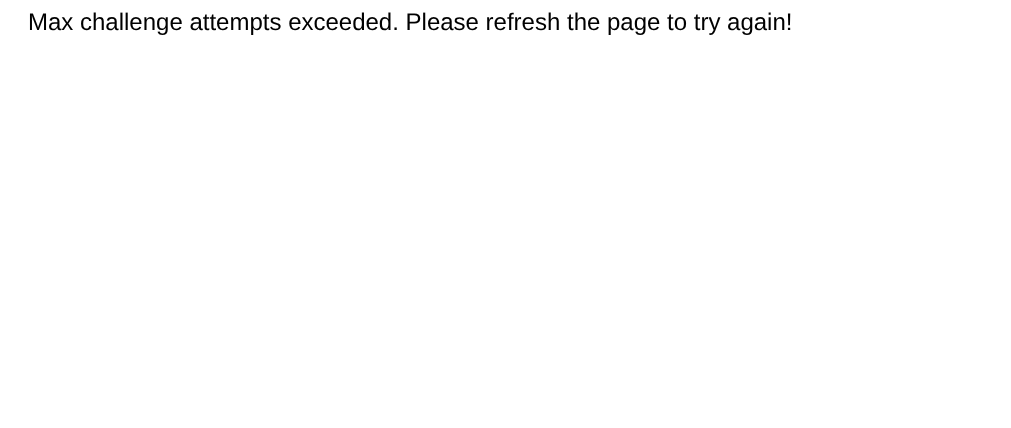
<?xml version="1.0" encoding="UTF-8"?>
<svg xmlns="http://www.w3.org/2000/svg" xmlns:xlink="http://www.w3.org/1999/xlink" width="1011" height="428">
  <rect width="100%" height="100%" fill="#ffffff" />
  <text x="28" y="30" style="font-family: Liberation Sans; font-size: 24px; fill: #000000">Max challenge attempts exceeded. Please refresh the page to try again!</text>
</svg>
